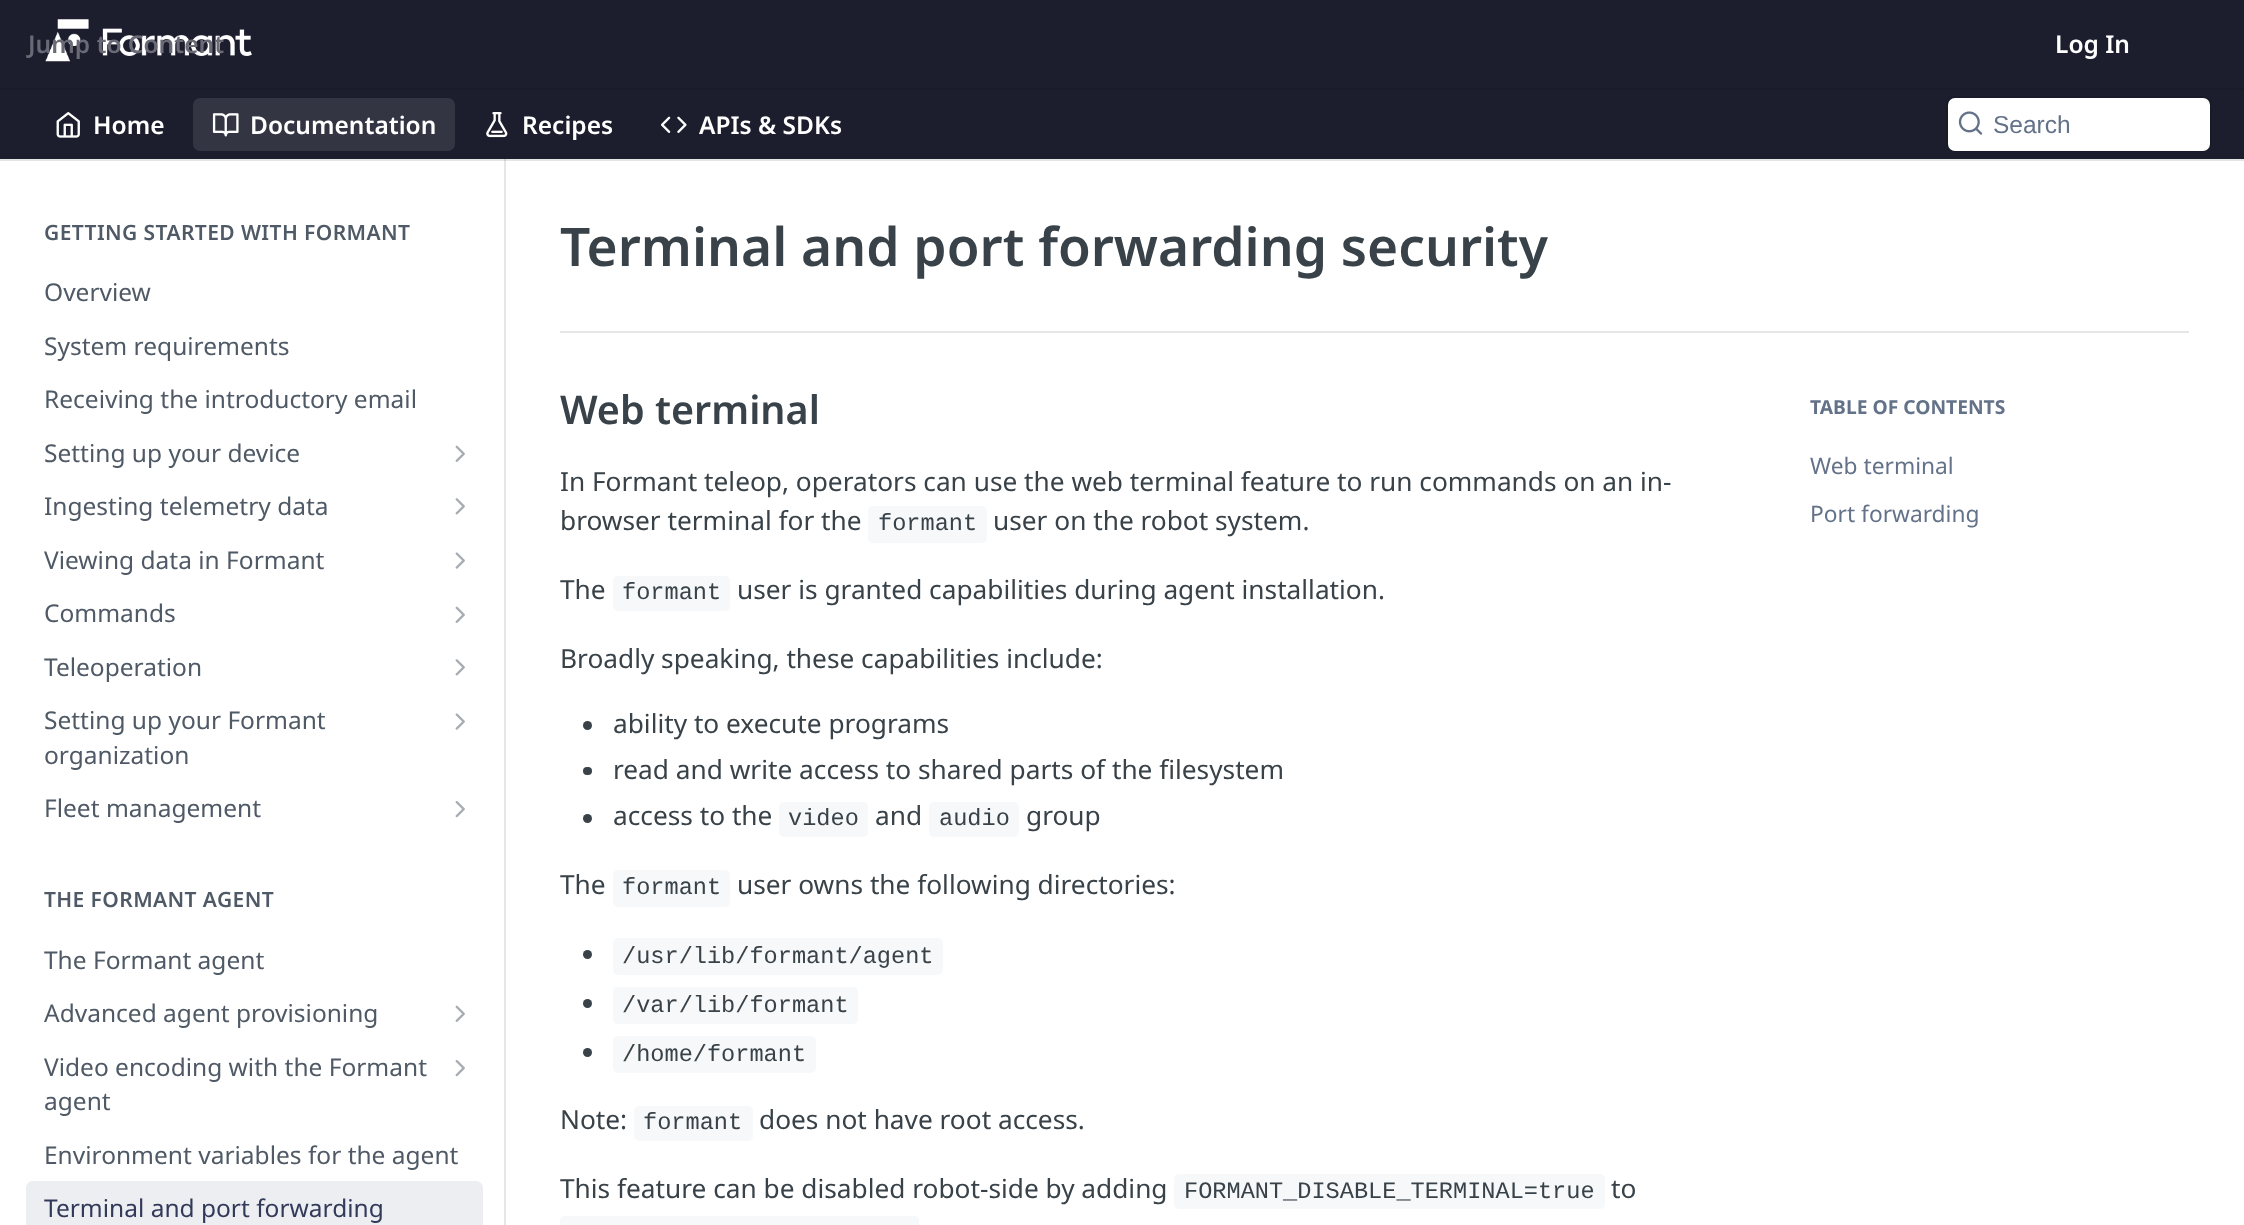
<?xml version="1.0" encoding="UTF-8"?>
<svg xmlns="http://www.w3.org/2000/svg" xmlns:xlink="http://www.w3.org/1999/xlink" width="2244" height="1225">
  <rect width="100%" height="100%" fill="#ffffff" />
  <path d="M 2 159 h 502 v 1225 h 2 v -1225 z" fill="#e6e6e6" />
  <rect y="159" width="2244" height="2" fill="#000000" fill-opacity="0.1" />
  <rect width="2244" height="159" fill="#1c1e2e" />
  <rect y="88" width="2244" height="2" fill="#191b29" />
  <image x="45" y="19" width="207" height="43" xlink:href="image1.png" />
  <image x="56" y="112" width="24" height="26" xlink:href="image2.png" />
  <rect x="193" y="98" width="262" height="53" rx="7" fill="#333543" />
  <image x="212" y="113" width="27" height="24" xlink:href="image3.png" />
  <image x="486" y="112" width="22" height="26" xlink:href="image4.png" />
  <image x="660" y="116" width="27" height="17" xlink:href="image5.png" />
  <rect x="1947" y="97" width="264" height="54" rx="8" fill="none" stroke="#191b29" stroke-width="2" />
  <rect x="1948" y="98" width="262" height="53" rx="7" fill="#ffffff" />
  <image x="1958" y="111" width="25" height="24" xlink:href="image6.png" />
  <image x="455" y="445" width="10" height="17" xlink:href="image7.png" />
  <image x="455" y="498" width="10" height="17" xlink:href="image8.png" />
  <image x="455" y="552" width="10" height="17" xlink:href="image9.png" />
  <image x="455" y="606" width="10" height="17" xlink:href="image7.png" />
  <image x="455" y="659" width="10" height="17" xlink:href="image8.png" />
  <image x="455" y="713" width="10" height="17" xlink:href="image9.png" />
  <image x="455" y="801" width="10" height="17" xlink:href="image10.png" />
  <image x="455" y="1005" width="10" height="17" xlink:href="image7.png" />
  <image x="455" y="1060" width="10" height="17" xlink:href="image10.png" />
  <path d="M 33 1181 h 443 c 4 0 7 3 7 7 v 37 h -457 v -37 c 0 -4 3 -7 7 -7 z" fill="#edeef2" />
  <rect x="560" y="331" width="1629" height="2" fill="#e6e6e6" />
  <rect x="868" y="506" width="119" height="37" rx="5" fill="#f6f8fa" />
  <rect x="613" y="576" width="117" height="35" rx="5" fill="#f6f8fa" />
  <circle cx="587.5" cy="725.5" r="4.5" fill="#384248" />
  <rect x="583" y="767" width="9" height="8" rx="4" fill="#384248" />
  <circle cx="587.5" cy="818.5" r="4.5" fill="#384248" />
  <rect x="779" y="802" width="89" height="35" rx="5" fill="#f6f8fa" />
  <rect x="929" y="802" width="90" height="35" rx="5" fill="#f6f8fa" />
  <rect x="613" y="870" width="117" height="37" rx="5" fill="#f6f8fa" />
  <circle cx="587.5" cy="954.5" r="4.5" fill="#384248" />
  <rect x="613" y="938" width="330" height="37" rx="5" fill="#f6f8fa" />
  <circle cx="587.5" cy="1003.5" r="4.5" fill="#384248" />
  <rect x="613" y="987" width="245" height="37" rx="5" fill="#f6f8fa" />
  <circle cx="587.5" cy="1052.5" r="4.5" fill="#384248" />
  <rect x="613" y="1036" width="203" height="37" rx="5" fill="#f6f8fa" />
  <rect x="634" y="1106" width="119" height="35" rx="5" fill="#f6f8fa" />
  <rect x="1174" y="1174" width="431" height="35" rx="5" fill="#f6f8fa" />
  <path d="M 565 1216 h 349 c 3 0 5 2 5 5 v 4 h -359 v -4 c 0 -3 2 -5 5 -5 z" fill="#f6f8fa" />
  <text x="28" y="53" style="font-family: Noto Sans; font-size: 24.5px; font-weight: 600; fill: #696a75">Jump to Content</text>
  <text x="2055" y="53" style="font-family: Noto Sans; font-size: 24.5px; font-weight: 600; fill: #ffffff">Log In</text>
  <text x="93" y="134" style="font-family: Noto Sans; font-size: 24.5px; font-weight: 600; fill: #ffffff">Home</text>
  <text x="250" y="134" style="font-family: Noto Sans; font-size: 24.5px; font-weight: 600; fill: #ffffff">Documentation</text>
  <text x="522" y="134" style="font-family: Noto Sans; font-size: 24.5px; font-weight: 600; fill: #ffffff">Recipes</text>
  <text x="699" y="134" style="font-family: Noto Sans; font-size: 24.5px; font-weight: 600; fill: #ffffff">APIs &amp; SDKs</text>
  <text x="1993" y="133" style="font-family: Liberation Sans; font-size: 24.5px; fill: #637288">Search</text>
  <text x="44" y="240" style="font-family: Noto Sans; font-size: 21px; font-weight: 600; letter-spacing: 0.4px; fill: #4f5a66">GETTING STARTED WITH FORMANT</text>
  <text x="44" y="301" style="font-family: Noto Sans; font-size: 24.5px; fill: #4f5a66">Overview</text>
  <text x="44" y="355" style="font-family: Noto Sans; font-size: 24.5px; fill: #4f5a66">System requirements</text>
  <text x="44" y="408" style="font-family: Noto Sans; font-size: 24.5px; fill: #4f5a66">Receiving the introductory email</text>
  <text x="44" y="462" style="font-family: Noto Sans; font-size: 24.5px; fill: #4f5a66">Setting up your device</text>
  <text x="44" y="515" style="font-family: Noto Sans; font-size: 24.5px; fill: #4f5a66">Ingesting telemetry data</text>
  <text x="44" y="569" style="font-family: Noto Sans; font-size: 24.5px; fill: #4f5a66">Viewing data in Formant</text>
  <text x="44" y="622" style="font-family: Noto Sans; font-size: 24.5px; fill: #4f5a66">Commands</text>
  <text x="44" y="676" style="font-family: Noto Sans; font-size: 24.5px; fill: #4f5a66">Teleoperation</text>
  <text x="44" y="729" style="font-family: Noto Sans; font-size: 24.5px; fill: #4f5a66">Setting up your Formant</text>
  <text x="44" y="764" style="font-family: Noto Sans; font-size: 24.5px; fill: #4f5a66">organization</text>
  <text x="44" y="817" style="font-family: Noto Sans; font-size: 24.5px; fill: #4f5a66">Fleet management</text>
  <text x="44" y="907" style="font-family: Noto Sans; font-size: 21px; font-weight: 600; letter-spacing: 0.4px; fill: #4f5a66">THE FORMANT AGENT</text>
  <text x="44" y="969" style="font-family: Noto Sans; font-size: 24.5px; fill: #4f5a66">The Formant agent</text>
  <text x="44" y="1022" style="font-family: Noto Sans; font-size: 24.5px; fill: #4f5a66">Advanced agent provisioning</text>
  <text x="44" y="1076" style="font-family: Noto Sans; font-size: 24.5px; fill: #4f5a66">Video encoding with the Formant</text>
  <text x="44" y="1110" style="font-family: Noto Sans; font-size: 24.5px; fill: #4f5a66">agent</text>
  <text x="44" y="1164" style="font-family: Noto Sans; font-size: 24.5px; fill: #4f5a66">Environment variables for the agent</text>
  <text x="44" y="1217" style="font-family: Noto Sans; font-size: 24.5px; fill: #323a59">Terminal and port forwarding</text>
  <text x="560" y="266" style="font-family: Noto Sans; font-size: 53.25px; font-weight: 600; fill: #384248">Terminal and port forwarding security</text>
  <text x="560" y="424" style="font-family: Noto Sans; font-size: 39.5px; font-weight: 600; fill: #384248">Web terminal</text>
  <text x="560" y="491" style="font-family: Noto Sans; font-size: 26.25px; fill: #384248">In Formant teleop, operators can use the web terminal feature to run commands on an in-</text>
  <text x="560" y="530" style="font-family: Noto Sans; font-size: 26.25px; fill: #384248">browser terminal for the</text>
  <text x="878" y="530" style="font-family: Liberation Mono; font-size: 23.6px; fill: #384248">formant</text>
  <text x="993" y="530" style="font-family: Noto Sans; font-size: 26.25px; fill: #384248">user on the robot system.</text>
  <text x="560" y="599" style="font-family: Noto Sans; font-size: 26.25px; fill: #384248">The</text>
  <text x="622" y="599" style="font-family: Liberation Mono; font-size: 23.6px; fill: #384248">formant</text>
  <text x="737" y="599" style="font-family: Noto Sans; font-size: 26.25px; fill: #384248">user is granted capabilities during agent installation.</text>
  <text x="560" y="668" style="font-family: Noto Sans; font-size: 26.25px; fill: #384248">Broadly speaking, these capabilities include:</text>
  <text x="613" y="733" style="font-family: Noto Sans; font-size: 26.25px; fill: #384248">ability to execute programs</text>
  <text x="613" y="779" style="font-family: Noto Sans; font-size: 26.25px; fill: #384248">read and write access to shared parts of the filesystem</text>
  <text x="613" y="825" style="font-family: Noto Sans; font-size: 26.25px; fill: #384248">access to the</text>
  <text x="788" y="825" style="font-family: Liberation Mono; font-size: 23.6px; fill: #384248">video</text>
  <text x="875" y="825" style="font-family: Noto Sans; font-size: 26.25px; fill: #384248">and</text>
  <text x="939" y="825" style="font-family: Liberation Mono; font-size: 23.6px; fill: #384248">audio</text>
  <text x="1026" y="825" style="font-family: Noto Sans; font-size: 26.25px; fill: #384248">group</text>
  <text x="560" y="894" style="font-family: Noto Sans; font-size: 26.25px; fill: #384248">The</text>
  <text x="622" y="894" style="font-family: Liberation Mono; font-size: 23.6px; fill: #384248">formant</text>
  <text x="737" y="894" style="font-family: Noto Sans; font-size: 26.25px; fill: #384248">user owns the following directories:</text>
  <text x="622" y="963" style="font-family: Liberation Mono; font-size: 23.6px; fill: #384248">/usr/lib/formant/agent</text>
  <text x="622" y="1012" style="font-family: Liberation Mono; font-size: 23.6px; fill: #384248">/var/lib/formant</text>
  <text x="622" y="1061" style="font-family: Liberation Mono; font-size: 23.6px; fill: #384248">/home/formant</text>
  <text x="560" y="1129" style="font-family: Noto Sans; font-size: 26.25px; fill: #384248">Note:</text>
  <text x="643" y="1129" style="font-family: Liberation Mono; font-size: 23.6px; fill: #384248">formant</text>
  <text x="759" y="1129" style="font-family: Noto Sans; font-size: 26.25px; fill: #384248">does not have root access.</text>
  <text x="560" y="1198" style="font-family: Noto Sans; font-size: 26.25px; fill: #384248">This feature can be disabled robot-side by adding</text>
  <text x="1184" y="1198" style="font-family: Liberation Mono; font-size: 23.6px; fill: #384248">FORMANT_DISABLE_TERMINAL=true</text>
  <text x="1611" y="1198" style="font-family: Noto Sans; font-size: 26.25px; fill: #384248">to</text>
  <text x="1810" y="414" style="font-family: Noto Sans; font-size: 19.25px; font-weight: bold; fill: #637288">TABLE OF CONTENTS</text>
  <text x="1810" y="474" style="font-family: Noto Sans; font-size: 22.75px; fill: #637288">Web terminal</text>
  <text x="1810" y="522" style="font-family: Noto Sans; font-size: 22.75px; fill: #637288">Port forwarding</text>
</svg>
